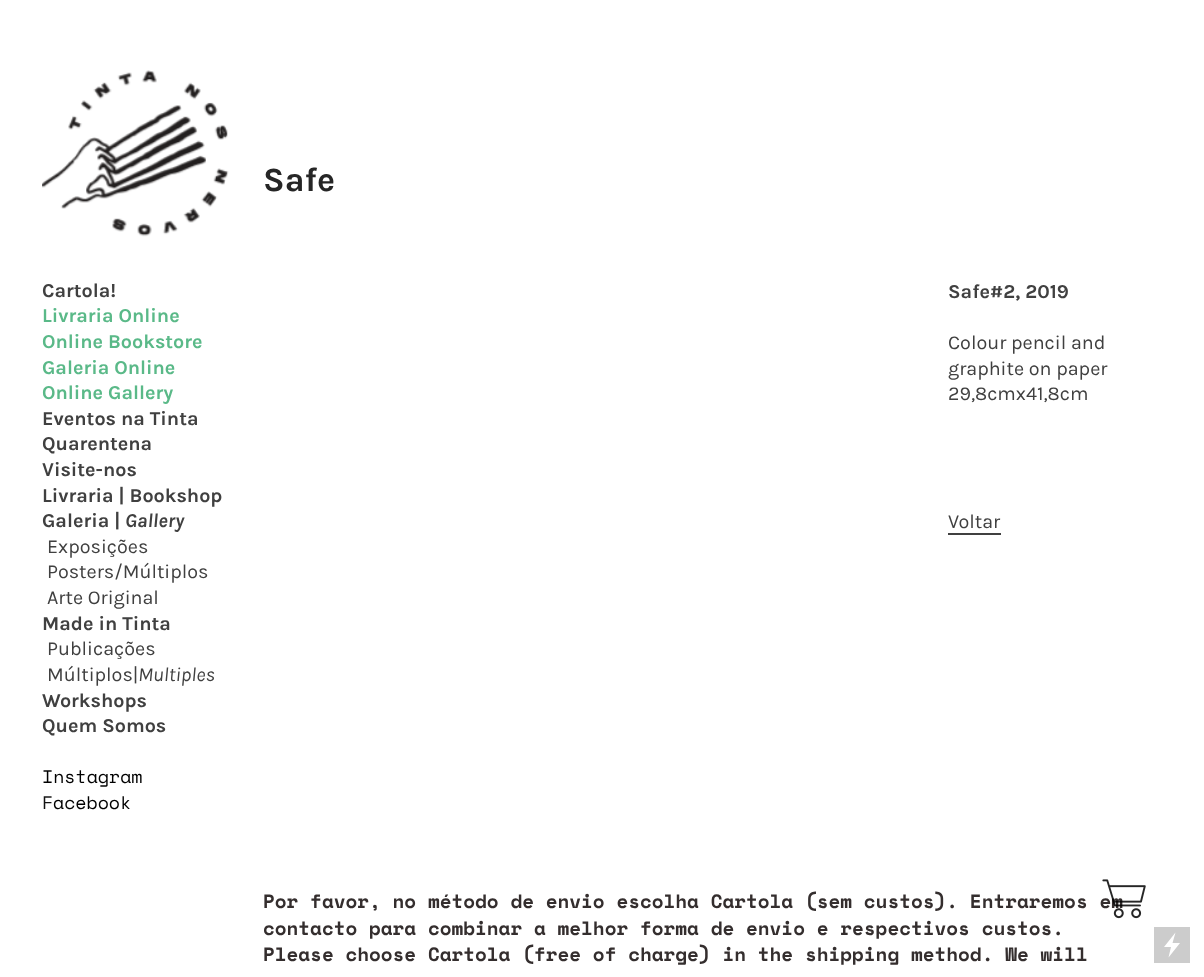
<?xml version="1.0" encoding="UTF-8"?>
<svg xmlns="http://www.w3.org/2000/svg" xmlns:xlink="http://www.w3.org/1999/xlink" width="1204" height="977">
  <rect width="100%" height="100%" fill="#ffffff" />
  <image x="42" y="70" width="187" height="167" xlink:href="image1.png" />
  <rect x="948" y="533" width="53" height="2" fill="#404040" />
  <rect x="1154" y="927" width="36" height="36" fill="#cccccc" />
  <path d="M 1180 943 h -7.5 l 3 -10.5 l -11.5 14.5 h 7 l -2.5 10.5 z" fill="#ffffff" />
  <text x="42" y="297" style="font-family: Karla; font-size: 19.75px; font-weight: bold; fill: #404040">Cartola!</text>
  <text x="42" y="322" style="font-family: Karla; font-size: 19.75px; font-weight: bold; fill: #5ab988">Livraria Online</text>
  <text x="42" y="348" style="font-family: Karla; font-size: 19.75px; font-weight: bold; fill: #5ab988">Online Bookstore</text>
  <text x="42" y="374" style="font-family: Karla; font-size: 19.75px; font-weight: bold; fill: #5ab988">Galeria Online</text>
  <text x="42" y="399" style="font-family: Karla; font-size: 19.75px; font-weight: bold; fill: #5ab988">Online Gallery</text>
  <text x="42" y="425" style="font-family: Karla; font-size: 19.75px; font-weight: bold; fill: #404040">Eventos na Tinta</text>
  <text x="42" y="450" style="font-family: Karla; font-size: 19.75px; font-weight: bold; fill: #404040">Quarentena</text>
  <text x="42" y="476" style="font-family: Karla; font-size: 19.75px; font-weight: bold; fill: #404040">Visite-nos</text>
  <text x="42" y="502" style="font-family: Karla; font-size: 19.75px; font-weight: bold; fill: #404040">Livraria | Bookshop</text>
  <text x="42" y="527" style="font-family: Karla; font-size: 19.75px; font-weight: bold; fill: #404040">Galeria |</text>
  <text x="125" y="527" style="font-family: Karla; font-size: 19.75px; font-weight: bold; font-style: italic; fill: #404040">Gallery</text>
  <text x="47" y="553" style="font-family: Karla; font-size: 19.75px; fill: #404040">Exposições</text>
  <text x="47" y="578" style="font-family: Karla; font-size: 19.75px; fill: #404040">Posters/Múltiplos</text>
  <text x="47" y="604" style="font-family: Karla; font-size: 19.75px; fill: #404040">Arte Original</text>
  <text x="42" y="630" style="font-family: Karla; font-size: 19.75px; font-weight: bold; fill: #404040">Made in Tinta</text>
  <text x="47" y="655" style="font-family: Karla; font-size: 19.75px; fill: #404040">Publicações</text>
  <text x="47" y="681" style="font-family: Karla; font-size: 19.75px; fill: #404040">Múltiplos|</text>
  <text x="138" y="681" style="font-family: Karla; font-size: 19.75px; font-style: italic; fill: #404040">Multiples</text>
  <text x="42" y="707" style="font-family: Karla; font-size: 19.75px; font-weight: bold; fill: #404040">Workshops</text>
  <text x="42" y="732" style="font-family: Karla; font-size: 19.75px; font-weight: bold; fill: #404040">Quem Somos</text>
  <text x="42" y="783" style="font-family: Space Mono; font-size: 18.25px; fill: #000000">Instagram</text>
  <text x="42" y="809" style="font-family: Space Mono; font-size: 18.25px; fill: #131313">F</text>
  <text x="53" y="809" style="font-family: Space Mono; font-size: 18.25px; fill: #000000">acebook</text>
  <text x="263" y="191" style="font-family: Karla; font-size: 34px; font-weight: bold; fill: #262626">Safe</text>
  <text x="948" y="298" style="font-family: Karla; font-size: 19.75px; font-weight: bold; fill: #404040">Safe#2, 2019</text>
  <text x="948" y="349" style="font-family: Karla; font-size: 19.75px; fill: #404040">Colour pencil and</text>
  <text x="948" y="375" style="font-family: Karla; font-size: 19.75px; fill: #404040">graphite on paper</text>
  <text x="948" y="400" style="font-family: Karla; font-size: 19.75px; fill: #404040">29,8cmx41,8cm</text>
  <text x="948" y="528" style="font-family: Karla; font-size: 19.75px; fill: #404040">Voltar</text>
  <text x="263" y="908" style="font-family: Space Mono; font-size: 19.25px; font-weight: bold; fill: #342e2e">Por favor, no método de envio escolha Cartola (sem custos). Entraremos em</text>
  <text x="263" y="935" style="font-family: Space Mono; font-size: 19.25px; font-weight: bold; fill: #342e2e">contacto para combinar a melhor forma de envio e respectivos custos.</text>
  <text x="263" y="961" style="font-family: Space Mono; font-size: 19.25px; font-weight: bold; fill: #342e2e">Please choose Cartola (free of charge) in the shipping method. We will</text>
  <image x="1102" y="879" width="44" height="40" xlink:href="image2.png" />
</svg>
